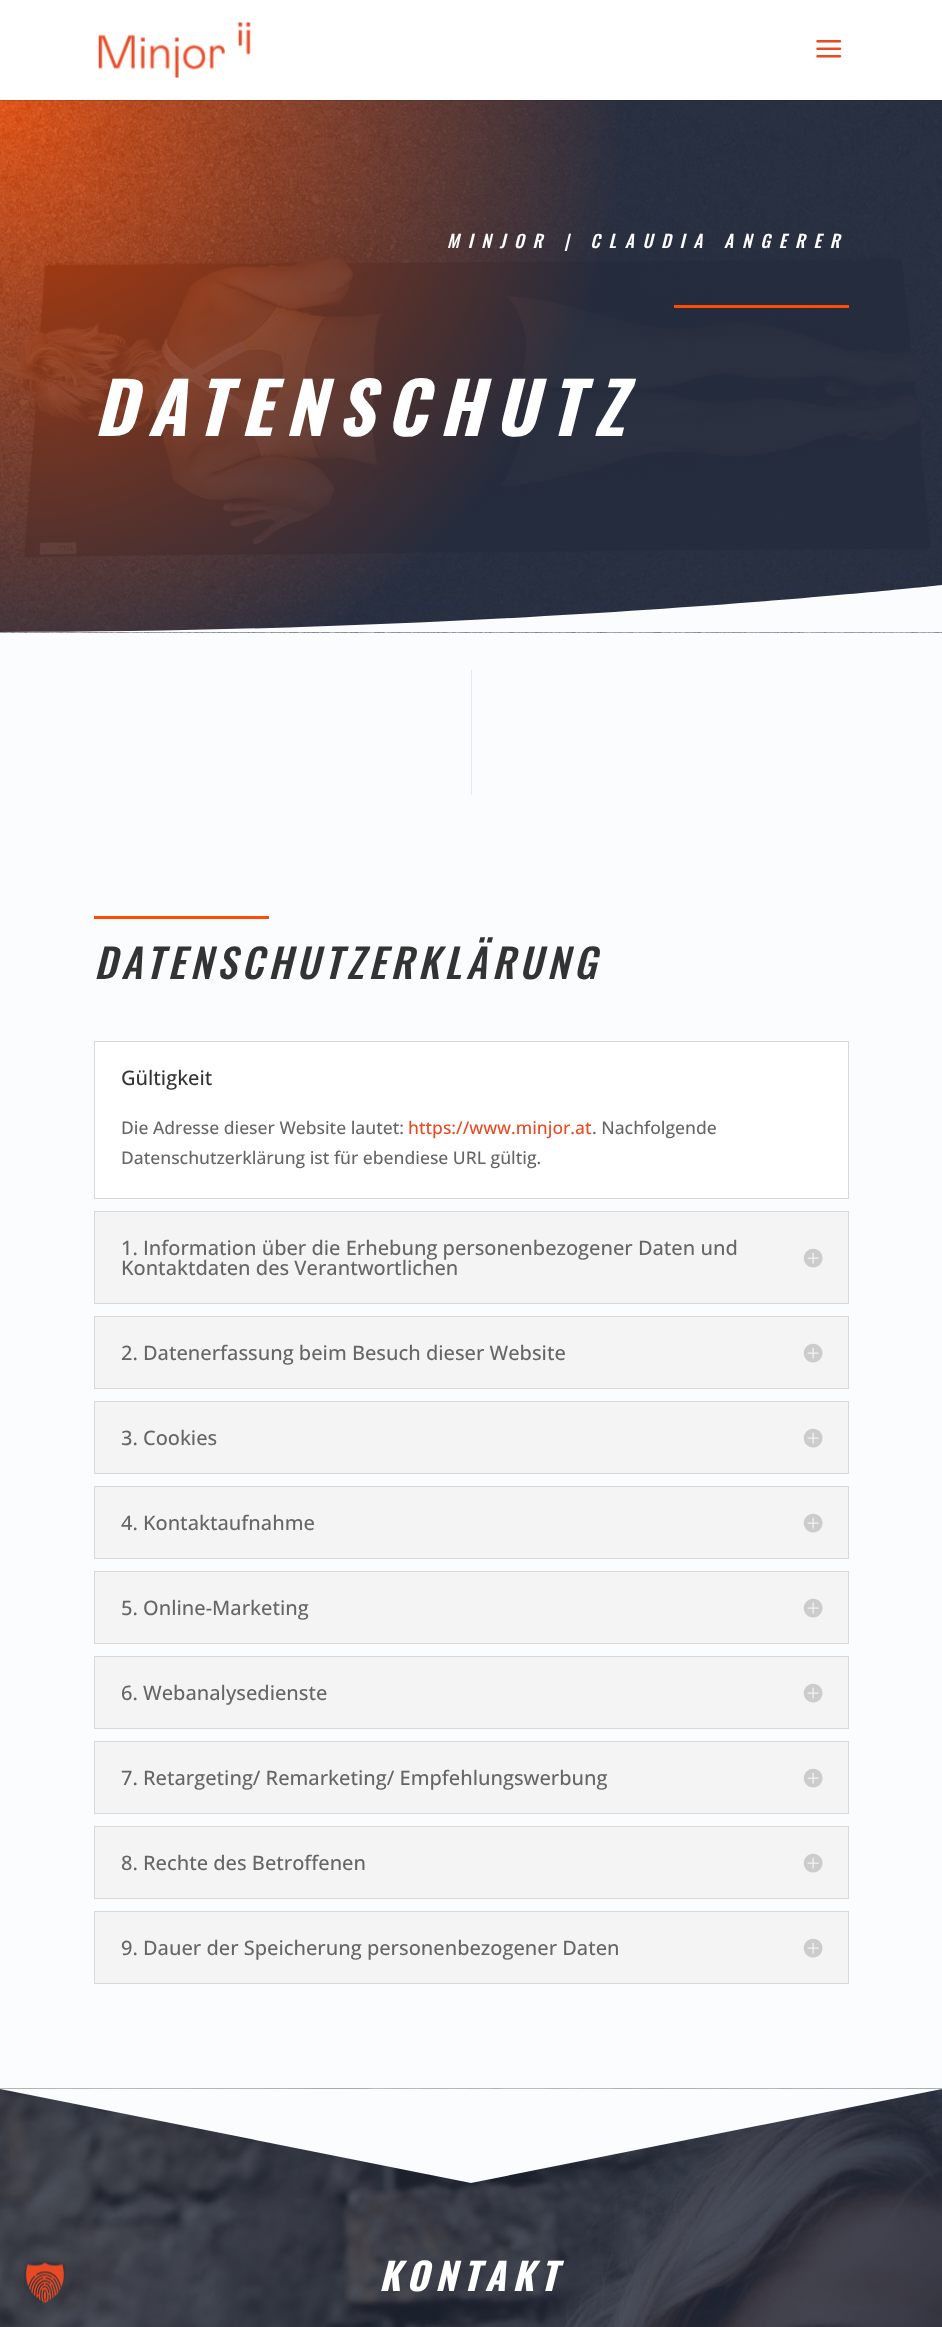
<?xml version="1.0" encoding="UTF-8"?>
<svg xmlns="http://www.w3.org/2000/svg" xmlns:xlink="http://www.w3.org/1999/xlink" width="942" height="2327">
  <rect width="100%" height="100%" fill="#ffffff" />
  <rect y="633" width="942" height="1456" fill="#fbfcfd" />
  <image x="0" y="2088" width="942" height="239" xlink:href="image6.png" />
  <image x="24" y="2262" width="42" height="41" xlink:href="image1.png" />
  <image x="0" y="100" width="942" height="533" xlink:href="image4.png" />
  <path d="M 0 100 v 1 h 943 v -100 h -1 v 99 z" fill="#000000" fill-opacity="0.1" />
  <image x="98" y="22" width="153" height="56" xlink:href="image2.png" />
  <image x="816" y="40" width="26" height="18" xlink:href="image3.png" />
  <rect x="674" y="305" width="175" height="3" fill="#ff4c00" />
  <path d="M 942 632 h -942 c 521 0 942 -47 942 -47 z" fill="#fbfcfd" />
  <rect x="471" y="670" width="1" height="125" fill="#e3e9ef" />
  <rect x="94" y="916" width="175" height="3" fill="#ff4c00" />
  <rect x="94.5" y="1041.5" width="754" height="157" fill="#ffffff" stroke="#d9d9d9" />
  <rect x="94.5" y="1211.5" width="754" height="92" fill="#f4f4f4" stroke="#d9d9d9" />
  <image x="803" y="1248" width="20" height="20" xlink:href="image5.png" />
  <rect x="94.5" y="1316.5" width="754" height="72" fill="#f4f4f4" stroke="#d9d9d9" />
  <image x="803" y="1343" width="20" height="20" xlink:href="image5.png" />
  <rect x="94.5" y="1401.5" width="754" height="72" fill="#f4f4f4" stroke="#d9d9d9" />
  <image x="803" y="1428" width="20" height="20" xlink:href="image5.png" />
  <rect x="94.5" y="1486.5" width="754" height="72" fill="#f4f4f4" stroke="#d9d9d9" />
  <image x="803" y="1513" width="20" height="20" xlink:href="image5.png" />
  <rect x="94.5" y="1571.5" width="754" height="72" fill="#f4f4f4" stroke="#d9d9d9" />
  <image x="803" y="1598" width="20" height="20" xlink:href="image5.png" />
  <rect x="94.5" y="1656.5" width="754" height="72" fill="#f4f4f4" stroke="#d9d9d9" />
  <image x="803" y="1683" width="20" height="20" xlink:href="image5.png" />
  <rect x="94.5" y="1741.5" width="754" height="72" fill="#f4f4f4" stroke="#d9d9d9" />
  <image x="803" y="1768" width="20" height="20" xlink:href="image5.png" />
  <rect x="94.5" y="1826.5" width="754" height="72" fill="#f4f4f4" stroke="#d9d9d9" />
  <image x="803" y="1853" width="20" height="20" xlink:href="image5.png" />
  <rect x="94.5" y="1911.5" width="754" height="72" fill="#f4f4f4" stroke="#d9d9d9" />
  <image x="803" y="1938" width="20" height="20" xlink:href="image5.png" />
  <path d="M 471 2183 l 471 -94 h -942 z" fill="#fbfcfd" />
  <text x="447" y="248" style="font-family: Oswald; font-size: 17.5px; font-weight: 500; font-style: italic; letter-spacing: 8.75px; fill: #ffffff">MINJOR | CLAUDIA ANGERER</text>
  <text x="94" y="436" style="font-family: Oswald; font-size: 70.75px; font-weight: bold; font-style: italic; letter-spacing: 12.75px; fill: #ffffff">DATENSCHUTZ</text>
  <text x="94" y="979" style="font-family: Oswald; font-size: 40px; font-weight: 500; font-style: italic; letter-spacing: 5px; fill: #333333">DATENSCHUTZERKLÄRUNG</text>
  <text x="121" y="1085" style="font-family: Open Sans; font-size: 20px; font-weight: 500; fill: #333333">Gültigkeit</text>
  <text x="121" y="1134" style="font-family: Open Sans; font-size: 17.5px; font-weight: 500; fill: #666666">Die Adresse dieser Website lautet:</text>
  <text x="408" y="1134" style="font-family: Open Sans; font-size: 17.5px; font-weight: 500; fill: #e94a24">https://www.minjor.at</text>
  <text x="592" y="1134" style="font-family: Open Sans; font-size: 17.5px; font-weight: 500; fill: #666666">. Nachfolgende</text>
  <text x="121" y="1164" style="font-family: Open Sans; font-size: 17.5px; font-weight: 500; fill: #666666">Datenschutzerklärung ist für ebendiese URL gültig.</text>
  <text x="121" y="1255" style="font-family: Open Sans; font-size: 20px; font-weight: 500; fill: #666666">1. Information über die Erhebung personenbezogener Daten und</text>
  <text x="121" y="1275" style="font-family: Open Sans; font-size: 20px; font-weight: 500; fill: #666666">Kontaktdaten des Verantwortlichen</text>
  <text x="121" y="1360" style="font-family: Open Sans; font-size: 20px; font-weight: 500; fill: #666666">2. Datenerfassung beim Besuch dieser Website</text>
  <text x="121" y="1445" style="font-family: Open Sans; font-size: 20px; font-weight: 500; fill: #666666">3. Cookies</text>
  <text x="121" y="1530" style="font-family: Open Sans; font-size: 20px; font-weight: 500; fill: #666666">4. Kontaktaufnahme</text>
  <text x="121" y="1615" style="font-family: Open Sans; font-size: 20px; font-weight: 500; fill: #666666">5. Online-Marketing</text>
  <text x="121" y="1700" style="font-family: Open Sans; font-size: 20px; font-weight: 500; fill: #666666">6. Webanalysedienste</text>
  <text x="121" y="1785" style="font-family: Open Sans; font-size: 20px; font-weight: 500; fill: #666666">7. Retargeting/ Remarketing/ Empfehlungswerbung</text>
  <text x="121" y="1870" style="font-family: Open Sans; font-size: 20px; font-weight: 500; fill: #666666">8. Rechte des Betroffenen</text>
  <text x="121" y="1955" style="font-family: Open Sans; font-size: 20px; font-weight: 500; fill: #666666">9. Dauer der Speicherung personenbezogener Daten</text>
  <text x="379" y="2291" style="font-family: Oswald; font-size: 37.5px; font-weight: bold; font-style: italic; letter-spacing: 6.75px; fill: #ffffff">KONTAKT</text>
</svg>
